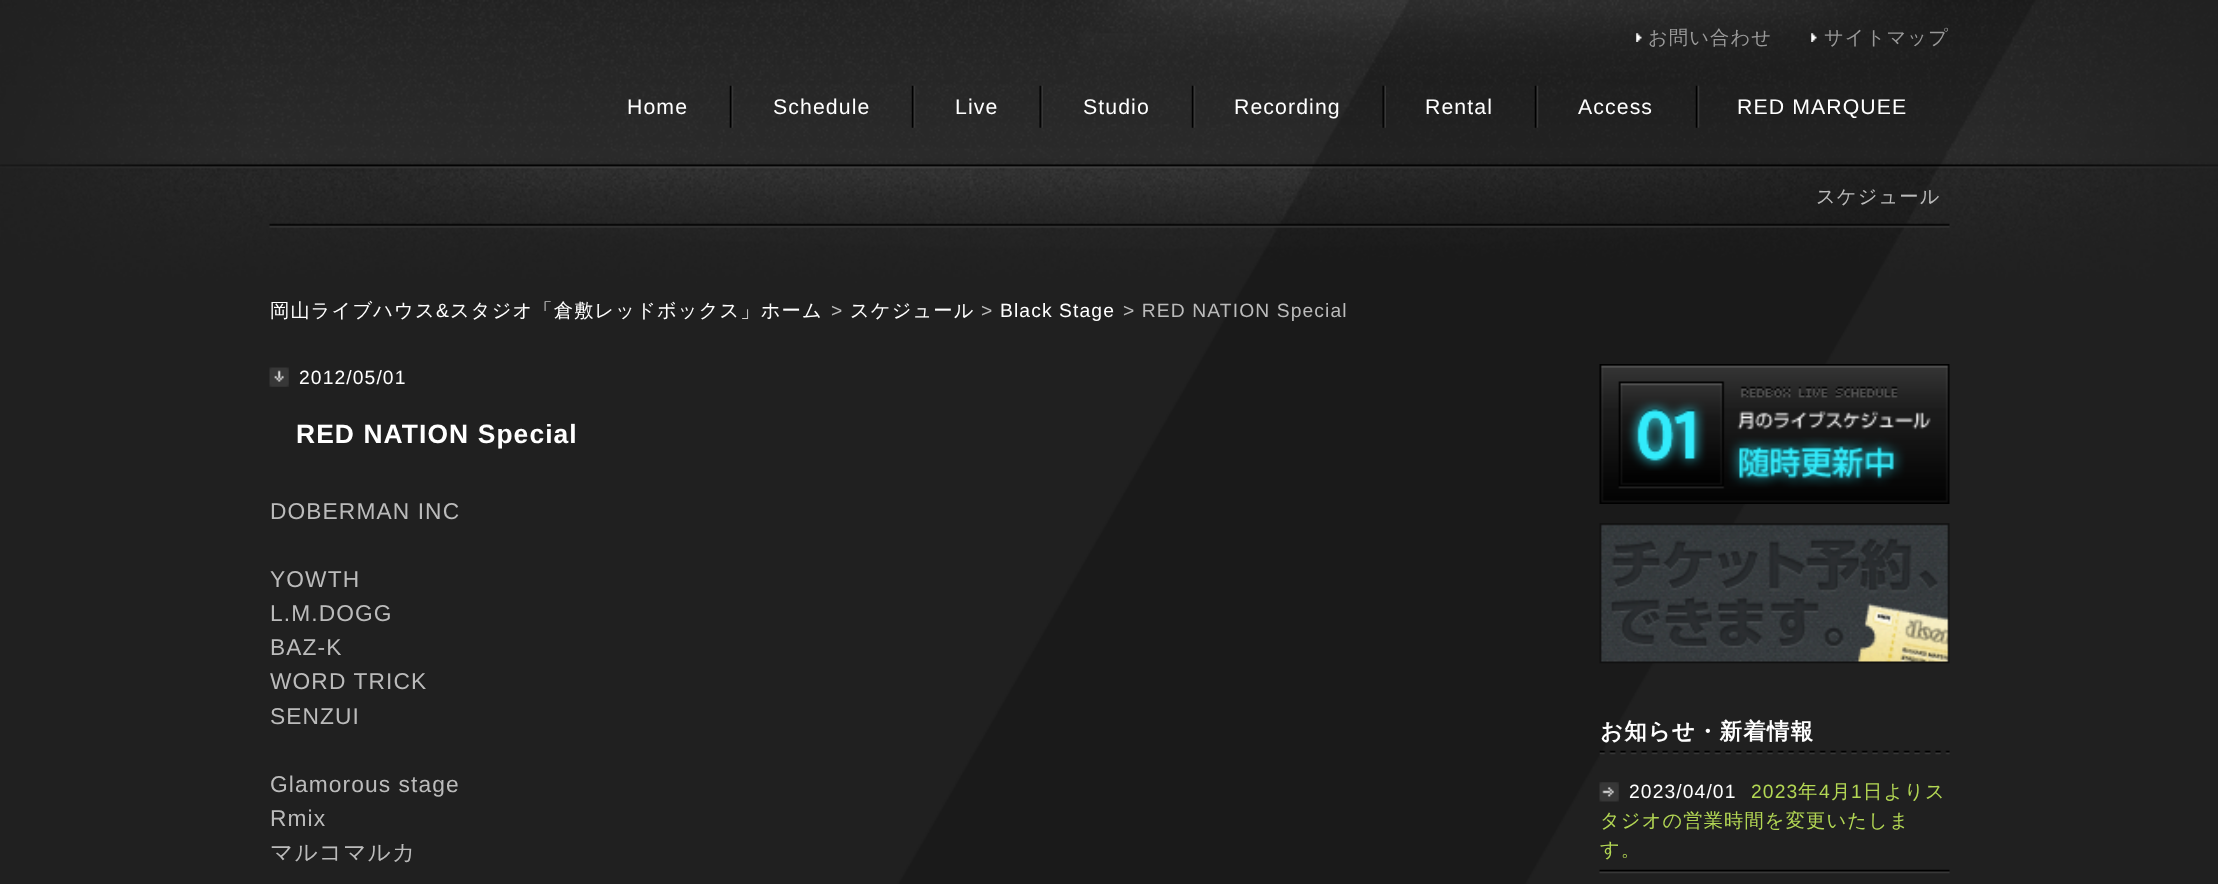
<?xml version="1.0" encoding="UTF-8"?>
<svg xmlns="http://www.w3.org/2000/svg" xmlns:xlink="http://www.w3.org/1999/xlink" width="2218" height="884">
  <rect width="100%" height="100%" fill="#ffffff" />
  <image x="0" y="0" width="2218" height="884" xlink:href="image1.png" />
  <image x="1636" y="33" width="6" height="9" xlink:href="image2.png" />
  <image x="1811" y="33" width="6" height="9" xlink:href="image3.png" />
  <image x="729" y="85" width="5" height="43" xlink:href="image4.png" />
  <image x="911" y="85" width="5" height="43" xlink:href="image5.png" />
  <image x="1039" y="85" width="4" height="43" xlink:href="image6.png" />
  <image x="1191" y="85" width="5" height="43" xlink:href="image7.png" />
  <image x="1382" y="85" width="4" height="43" xlink:href="image8.png" />
  <image x="1534" y="85" width="5" height="43" xlink:href="image9.png" />
  <image x="1695" y="85" width="5" height="43" xlink:href="image10.png" />
  <image x="269" y="367" width="20" height="20" xlink:href="image11.png" />
  <image x="1599" y="364" width="351" height="140" xlink:href="image12.png" />
  <image x="1599" y="523" width="351" height="141" xlink:href="image13.png" />
  <image x="1599" y="750" width="351" height="5" xlink:href="image14.png" />
  <image x="1599" y="869" width="351" height="5" xlink:href="image15.png" />
  <image x="1599" y="782" width="20" height="20" xlink:href="image16.png" />
  <text x="1648" y="44" style="font-family: WenQuanYi Zen Hei; font-size: 19.3px; font-weight: 500; letter-spacing: 1.1px; fill: #999999">お問い合わせ</text>
  <text x="1824" y="44" style="font-family: WenQuanYi Zen Hei; font-size: 19.3px; font-weight: 500; letter-spacing: 1.1px; fill: #999999">サイトマップ</text>
  <text x="627" y="114" style="font-family: Liberation Sans; font-size: 21.25px; letter-spacing: 1.1px; fill: #ffffff">Home</text>
  <text x="773" y="114" style="font-family: Liberation Sans; font-size: 21.25px; letter-spacing: 1.1px; fill: #ffffff">Schedule</text>
  <text x="955" y="114" style="font-family: Liberation Sans; font-size: 21.25px; letter-spacing: 1.1px; fill: #ffffff">Live</text>
  <text x="1083" y="114" style="font-family: Liberation Sans; font-size: 21.25px; letter-spacing: 1.1px; fill: #ffffff">Studio</text>
  <text x="1234" y="114" style="font-family: Liberation Sans; font-size: 21.25px; letter-spacing: 1.1px; fill: #ffffff">Recording</text>
  <text x="1425" y="114" style="font-family: Liberation Sans; font-size: 21.25px; letter-spacing: 1.1px; fill: #ffffff">Rental</text>
  <text x="1578" y="114" style="font-family: Liberation Sans; font-size: 21.25px; letter-spacing: 1.1px; fill: #ffffff">Access</text>
  <text x="1737" y="114" style="font-family: Liberation Sans; font-size: 21.25px; letter-spacing: 1.1px; fill: #ffffff">RED MARQUEE</text>
  <text x="1816" y="203" style="font-family: WenQuanYi Zen Hei; font-size: 19.3px; font-weight: 500; letter-spacing: 1.1px; fill: #bbbbbb">スケジュール</text>
  <text x="270" y="317" style="font-family: WenQuanYi Zen Hei; font-size: 19.3px; font-weight: 500; letter-spacing: 1.1px; fill: #ffffff">岡山ライブハウス</text>
  <text x="436" y="317" style="font-family: Liberation Sans; font-size: 19.3px; letter-spacing: 1.1px; fill: #ffffff">&amp;</text>
  <text x="450" y="317" style="font-family: WenQuanYi Zen Hei; font-size: 19.3px; font-weight: 500; letter-spacing: 1.1px; fill: #ffffff">スタジオ「倉敷レッドボックス」ホーム</text>
  <text x="831" y="317" style="font-family: Liberation Sans; font-size: 19.3px; letter-spacing: 1.1px; fill: #bbbbbb">&gt;</text>
  <text x="850" y="317" style="font-family: WenQuanYi Zen Hei; font-size: 19.3px; font-weight: 500; letter-spacing: 1.1px; fill: #ffffff">スケジュール</text>
  <text x="981" y="317" style="font-family: Liberation Sans; font-size: 19.3px; letter-spacing: 1.1px; fill: #bbbbbb">&gt;</text>
  <text x="1000" y="317" style="font-family: Liberation Sans; font-size: 19.3px; letter-spacing: 1.1px; fill: #ffffff">Black Stage</text>
  <text x="1123" y="317" style="font-family: Liberation Sans; font-size: 19.3px; letter-spacing: 1.1px; fill: #bbbbbb">&gt; RED NATION Special</text>
  <text x="299" y="384" style="font-family: Liberation Sans; font-size: 19.3px; letter-spacing: 1.1px; fill: #ffffff">2012/05/01</text>
  <text x="296" y="443" style="font-family: Liberation Sans; font-size: 26.4px; font-weight: bold; letter-spacing: 1.1px; fill: #ffffff">RED NATION Special</text>
  <text x="270" y="519" style="font-family: Liberation Sans; font-size: 22.75px; letter-spacing: 1.1px; fill: #bbbbbb">DOBERMAN INC</text>
  <text x="270" y="587" style="font-family: Liberation Sans; font-size: 22.75px; letter-spacing: 1.1px; fill: #bbbbbb">YOWTH</text>
  <text x="270" y="621" style="font-family: Liberation Sans; font-size: 22.75px; letter-spacing: 1.1px; fill: #bbbbbb">L.M.DOGG</text>
  <text x="270" y="655" style="font-family: Liberation Sans; font-size: 22.75px; letter-spacing: 1.1px; fill: #bbbbbb">BAZ-K</text>
  <text x="270" y="689" style="font-family: Liberation Sans; font-size: 22.75px; letter-spacing: 1.1px; fill: #bbbbbb">WORD TRICK</text>
  <text x="270" y="724" style="font-family: Liberation Sans; font-size: 22.75px; letter-spacing: 1.1px; fill: #bbbbbb">SENZUI</text>
  <text x="270" y="792" style="font-family: Liberation Sans; font-size: 22.75px; letter-spacing: 1.1px; fill: #bbbbbb">Glamorous stage</text>
  <text x="270" y="826" style="font-family: Liberation Sans; font-size: 22.75px; letter-spacing: 1.1px; fill: #bbbbbb">Rmix</text>
  <text x="270" y="860" style="font-family: WenQuanYi Zen Hei; font-size: 22.75px; font-weight: 500; letter-spacing: 1.1px; fill: #bbbbbb">マルコマルカ</text>
  <text x="1600" y="739" style="font-family: WenQuanYi Zen Hei; font-size: 22.5px; font-weight: bold; letter-spacing: 1.1px; fill: #ffffff">お知らせ・新着情報</text>
  <text x="1629" y="798" style="font-family: Liberation Sans; font-size: 19.3px; letter-spacing: 1.1px; fill: #ffffff">2023/04/01</text>
  <text x="1751" y="798" style="font-family: Liberation Sans; font-size: 19.3px; letter-spacing: 1.1px; fill: #b3d754">2023</text>
  <text x="1798" y="798" style="font-family: WenQuanYi Zen Hei; font-size: 19.3px; font-weight: 500; letter-spacing: 1.1px; fill: #b3d754">年</text>
  <text x="1819" y="798" style="font-family: Liberation Sans; font-size: 19.3px; letter-spacing: 1.1px; fill: #b3d754">4</text>
  <text x="1831" y="798" style="font-family: WenQuanYi Zen Hei; font-size: 19.3px; font-weight: 500; letter-spacing: 1.1px; fill: #b3d754">月</text>
  <text x="1851" y="798" style="font-family: Liberation Sans; font-size: 19.3px; letter-spacing: 1.1px; fill: #b3d754">1</text>
  <text x="1863" y="798" style="font-family: WenQuanYi Zen Hei; font-size: 19.3px; font-weight: 500; letter-spacing: 1.1px; fill: #b3d754">日よりス</text>
  <text x="1600" y="827" style="font-family: WenQuanYi Zen Hei; font-size: 19.3px; font-weight: 500; letter-spacing: 1.1px; fill: #b3d754">タジオの営業時間を変更いたしま</text>
  <text x="1600" y="856" style="font-family: WenQuanYi Zen Hei; font-size: 19.3px; font-weight: 500; letter-spacing: 1.1px; fill: #b3d754">す。</text>
</svg>
